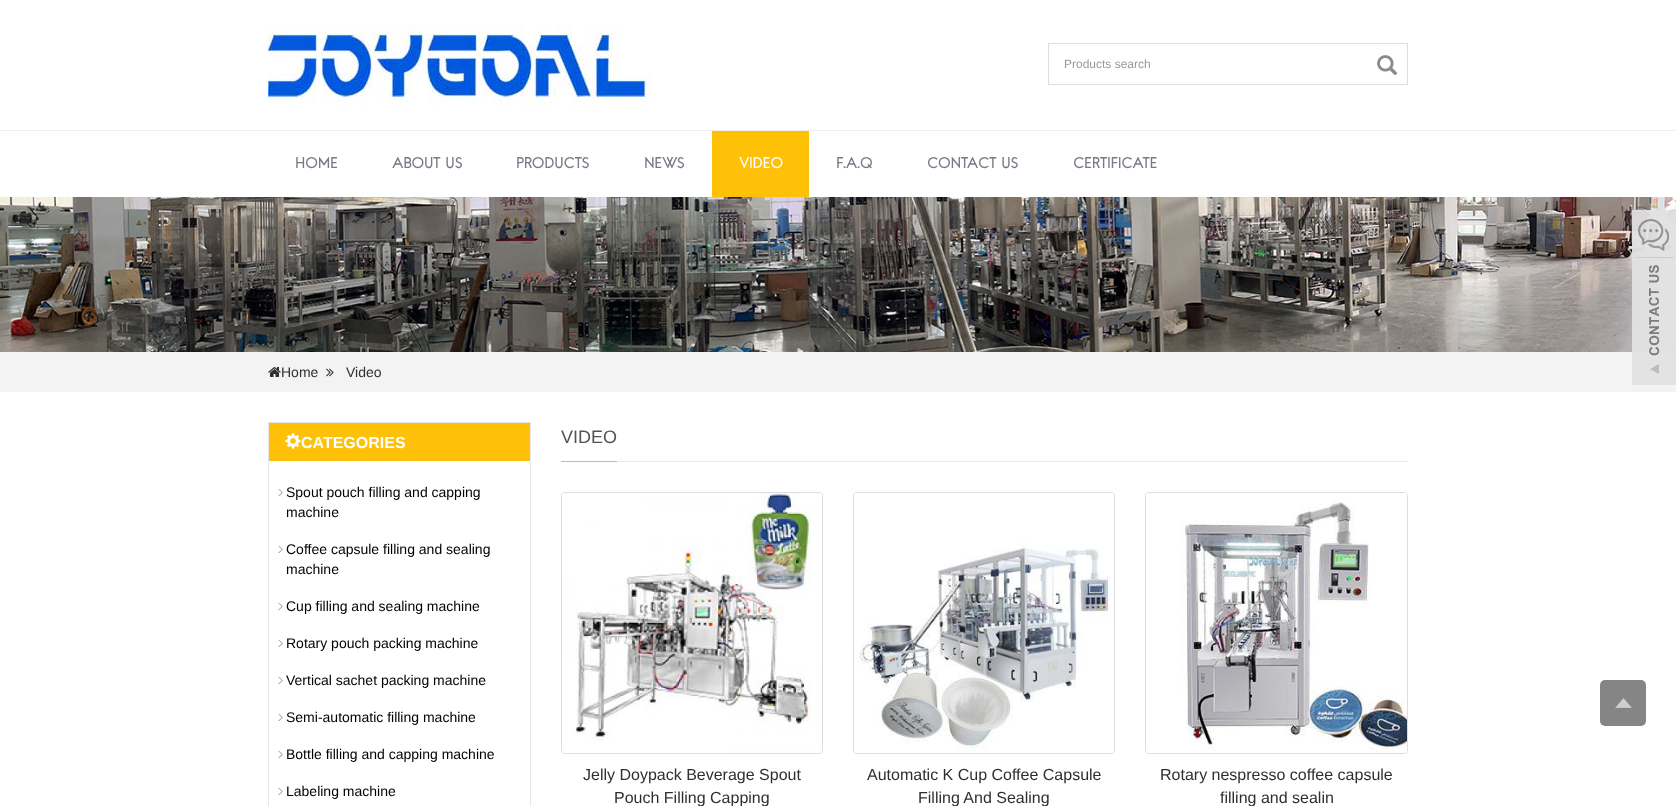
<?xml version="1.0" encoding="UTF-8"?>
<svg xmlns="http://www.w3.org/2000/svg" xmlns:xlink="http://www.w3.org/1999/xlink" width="1676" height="806">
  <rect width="100%" height="100%" fill="#ffffff" />
  <image x="268" y="25" width="384" height="80" xlink:href="image1.png" />
  <rect x="1048.5" y="43.5" width="359" height="41" fill="none" stroke="#dedede" />
  <image x="1377" y="55" width="21" height="20" xlink:href="image2.png" />
  <rect y="130" width="1676" height="1" fill="#efefef" />
  <rect x="712" y="131" width="97" height="66" fill="#ffc107" />
  <image x="0" y="197" width="1676" height="155" xlink:href="image3.png" />
  <rect y="352" width="1676" height="40" fill="#f3f3f3" />
  <image x="268" y="367" width="13" height="10" xlink:href="image4.png" />
  <image x="326" y="368" width="8" height="9" xlink:href="image5.png" />
  <image x="1632" y="210" width="44" height="175" xlink:href="image6.png" />
  <rect x="1600" y="680" width="46" height="46" rx="5" fill="#858585" />
  <image x="1615" y="698" width="17" height="10" xlink:href="image7.png" />
  <rect x="268.5" y="422.5" width="262" height="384" fill="none" stroke="#e6e6e6" />
  <rect x="269" y="423" width="261" height="38" fill="#ffc107" />
  <image x="285" y="433" width="16" height="16" xlink:href="image8.png" />
  <image x="278" y="489" width="5" height="7" xlink:href="image9.png" />
  <image x="278" y="546" width="5" height="7" xlink:href="image9.png" />
  <image x="278" y="603" width="5" height="7" xlink:href="image9.png" />
  <image x="278" y="640" width="5" height="7" xlink:href="image9.png" />
  <image x="278" y="677" width="5" height="7" xlink:href="image9.png" />
  <image x="278" y="714" width="5" height="7" xlink:href="image9.png" />
  <image x="278" y="751" width="5" height="7" xlink:href="image9.png" />
  <image x="278" y="788" width="5" height="7" xlink:href="image9.png" />
  <rect x="617" y="461" width="791" height="1" fill="#ebebeb" />
  <rect x="561" y="461" width="56" height="1" fill="#bbbbbb" />
  <rect x="561.5" y="492.5" width="261" height="261" rx="3.5" fill="none" stroke="#dddddd" />
  <image x="562" y="493" width="260" height="260" xlink:href="image10.png" />
  <rect x="853.5" y="492.5" width="261" height="261" rx="3.5" fill="none" stroke="#dddddd" />
  <image x="854" y="493" width="260" height="260" xlink:href="image11.png" />
  <rect x="1145.5" y="492.5" width="262" height="261" rx="3.5" fill="none" stroke="#dddddd" />
  <image x="1146" y="493" width="261" height="260" xlink:href="image12.png" />
  <text x="1064" y="68" style="font-family: Liberation Sans; font-size: 12px; fill: #999999">Products search</text>
  <text x="295" y="168" style="font-family: 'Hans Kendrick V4'; font-size: 14px; font-weight: bold; fill: #787a88">HOME</text>
  <text x="392" y="168" style="font-family: 'Hans Kendrick V4'; font-size: 14px; font-weight: bold; fill: #787a88">ABOUT US</text>
  <text x="516" y="168" style="font-family: 'Hans Kendrick V4'; font-size: 14px; font-weight: bold; fill: #787a88">PRODUCTS</text>
  <text x="644" y="168" style="font-family: 'Hans Kendrick V4'; font-size: 14px; font-weight: bold; fill: #787a88">NEWS</text>
  <text x="739" y="168" style="font-family: 'Hans Kendrick V4'; font-size: 14px; font-weight: bold; fill: #ffffff">VIDEO</text>
  <text x="836" y="168" style="font-family: 'Hans Kendrick V4'; font-size: 14px; font-weight: bold; fill: #787a88">F.A.Q</text>
  <text x="927" y="168" style="font-family: 'Hans Kendrick V4'; font-size: 14px; font-weight: bold; fill: #787a88">CONTACT US</text>
  <text x="1073" y="168" style="font-family: 'Hans Kendrick V4'; font-size: 14px; font-weight: bold; fill: #787a88">CERTIFICATE</text>
  <text x="281" y="377" style="font-family: Liberation Sans; font-size: 14px; fill: #2f2f2f">Home</text>
  <text x="346" y="377" style="font-family: Liberation Sans; font-size: 14px; fill: #2f2f2f">Video</text>
  <text x="301" y="448" style="font-family: Liberation Sans; font-size: 16px; font-weight: bold; fill: #ffffff">CATEGORIES</text>
  <text x="286" y="497" style="font-family: Liberation Sans; font-size: 14px; fill: #000000">Spout pouch filling and capping</text>
  <text x="286" y="517" style="font-family: Liberation Sans; font-size: 14px; fill: #000000">machine</text>
  <text x="286" y="554" style="font-family: Liberation Sans; font-size: 14px; fill: #000000">Coffee capsule filling and sealing</text>
  <text x="286" y="574" style="font-family: Liberation Sans; font-size: 14px; fill: #000000">machine</text>
  <text x="286" y="611" style="font-family: Liberation Sans; font-size: 14px; fill: #000000">Cup filling and sealing machine</text>
  <text x="286" y="648" style="font-family: Liberation Sans; font-size: 14px; fill: #000000">Rotary pouch packing machine</text>
  <text x="286" y="685" style="font-family: Liberation Sans; font-size: 14px; fill: #000000">Vertical sachet packing machine</text>
  <text x="286" y="722" style="font-family: Liberation Sans; font-size: 14px; fill: #000000">Semi-automatic filling machine</text>
  <text x="286" y="759" style="font-family: Liberation Sans; font-size: 14px; fill: #000000">Bottle filling and capping machine</text>
  <text x="286" y="796" style="font-family: Liberation Sans; font-size: 14px; fill: #000000">Labeling machine</text>
  <text x="561" y="443" style="font-family: Liberation Sans; font-size: 18px; fill: #545454">VIDEO</text>
  <text x="583" y="780" style="font-family: Liberation Sans; font-size: 16px; fill: #2f2f2f">Jelly Doypack Beverage Spout</text>
  <text x="614" y="803" style="font-family: Liberation Sans; font-size: 16px; fill: #2f2f2f">Pouch Filling Capping</text>
  <text x="867" y="780" style="font-family: Liberation Sans; font-size: 16px; fill: #2f2f2f">Automatic K Cup Coffee Capsule</text>
  <text x="918" y="803" style="font-family: Liberation Sans; font-size: 16px; fill: #2f2f2f">Filling And Sealing</text>
  <text x="1160" y="780" style="font-family: Liberation Sans; font-size: 16px; fill: #2f2f2f">Rotary nespresso coffee capsule</text>
  <text x="1220" y="803" style="font-family: Liberation Sans; font-size: 16px; fill: #2f2f2f">filling and sealin</text>
</svg>
